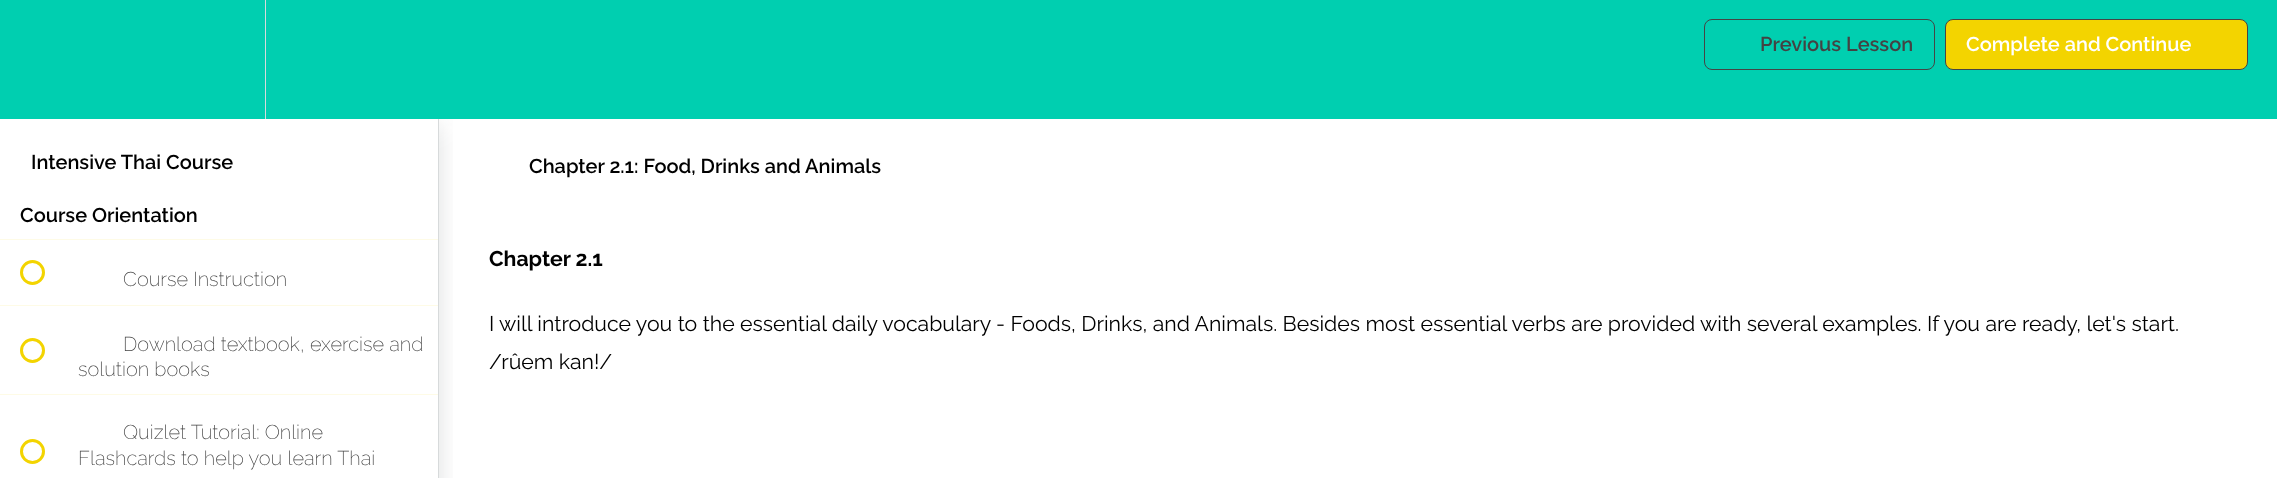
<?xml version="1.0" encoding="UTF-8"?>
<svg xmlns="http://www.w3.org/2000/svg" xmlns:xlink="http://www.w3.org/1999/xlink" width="2277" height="478">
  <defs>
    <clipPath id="clip1"><rect x="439" y="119" width="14" height="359" /></clipPath>
  </defs>
  <rect width="100%" height="100%" fill="#ffffff" />
  <g clip-path="url(#clip1)">
    <rect y="126" width="439" height="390" fill="#20272d" fill-opacity="0.15" filter="blur(12.5px)" />
  </g>
  <rect width="2277" height="119" fill="#00cfb0" />
  <rect x="265" width="1" height="119" fill="#d7dadb" />
  <rect x="1704.5" y="19.5" width="230" height="50" rx="7.5" fill="none" stroke="#454545" />
  <rect x="1945.5" y="19.5" width="302" height="50" rx="7.5" fill="#f3d400" stroke="#454545" />
  <rect x="438" y="119" width="1" height="359" fill="#d7dadb" />
  <rect y="239" width="438" height="1" fill="#fefbe6" />
  <rect y="305" width="438" height="1" fill="#fefbe6" />
  <circle cx="32.5" cy="272.5" r="11" fill="none" stroke="#f3d400" stroke-width="3" />
  <rect y="394" width="438" height="1" fill="#fefbe6" />
  <circle cx="32.5" cy="350.5" r="11" fill="none" stroke="#f3d400" stroke-width="3" />
  <circle cx="32.5" cy="451.5" r="11" fill="none" stroke="#f3d400" stroke-width="3" />
  <text x="1760" y="51" style="font-family: Raleway; font-size: 20px; font-weight: 600; fill: #434343">Previous Lesson</text>
  <text x="1966" y="51" style="font-family: Raleway; font-size: 20px; font-weight: 600; fill: #ffffff">Complete and Continue</text>
  <text x="31" y="169" style="font-family: Raleway; font-size: 20px; font-weight: 600; fill: #000000">Intensive Thai Course</text>
  <text x="20" y="222" style="font-family: Raleway; font-size: 20px; font-weight: 600; fill: #000000">Course Orientation</text>
  <text x="123" y="286" style="font-family: Raleway; font-size: 20px; font-weight: 200; fill: #434343">Course Instruction</text>
  <text x="123" y="351" style="font-family: Raleway; font-size: 20px; font-weight: 200; fill: #434343">Download textbook, exercise and</text>
  <text x="78" y="376" style="font-family: Raleway; font-size: 20px; font-weight: 200; fill: #434343">solution books</text>
  <text x="123" y="439" style="font-family: Raleway; font-size: 20px; font-weight: 200; fill: #434343">Quizlet Tutorial: Online</text>
  <text x="78" y="465" style="font-family: Raleway; font-size: 20px; font-weight: 200; fill: #434343">Flashcards to help you learn Thai</text>
  <text x="529" y="173" style="font-family: Raleway; font-size: 20px; font-weight: 600; fill: #000000">Chapter 2.1: Food, Drinks and Animals</text>
  <text x="489" y="266" style="font-family: Raleway; font-size: 21.25px; font-weight: bold; fill: #000000">Chapter 2.1</text>
  <text x="489" y="331" style="font-family: Raleway; font-size: 21.25px; fill: #000000">I will introduce you to the essential daily vocabulary - Foods, Drinks, and Animals. Besides most essential verbs are provided with several examples. If you are ready, let's start.</text>
  <text x="489" y="369" style="font-family: Raleway; font-size: 21.25px; fill: #000000">/rûem kan!/</text>
</svg>
